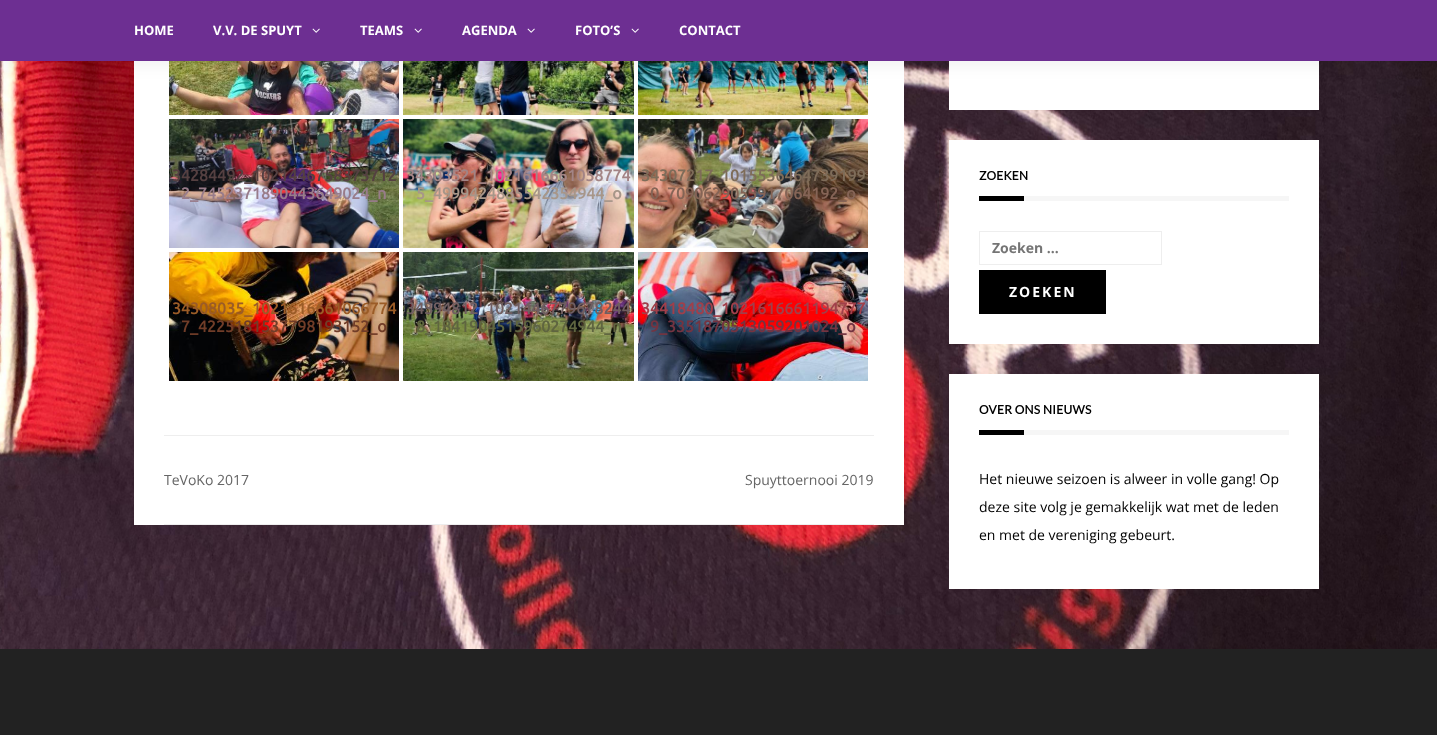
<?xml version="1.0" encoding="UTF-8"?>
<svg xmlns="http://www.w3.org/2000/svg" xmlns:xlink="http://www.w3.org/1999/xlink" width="1437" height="735">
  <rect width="100%" height="100%" fill="#ffffff" />
  <image x="0" y="61" width="1437" height="588" xlink:href="image1.png" />
  <rect x="134" y="61" width="770" height="464" fill="#ffffff" />
  <image x="169" y="61" width="230" height="54" xlink:href="image3.png" />
  <image x="403" y="61" width="231" height="54" xlink:href="image4.png" />
  <image x="638" y="61" width="230" height="54" xlink:href="image5.png" />
  <rect x="949" y="61" width="370" height="49" fill="#ffffff" />
  <rect y="5" width="1437" height="61" fill="#000000" fill-opacity="0.05" filter="blur(7.5px)" />
  <rect width="1437" height="61" fill="#6d2f92" />
  <image x="312" y="28" width="8" height="5" xlink:href="image2.png" />
  <image x="414" y="28" width="8" height="5" xlink:href="image2.png" />
  <image x="527" y="28" width="8" height="5" xlink:href="image2.png" />
  <image x="631" y="28" width="8" height="5" xlink:href="image2.png" />
  <image x="169" y="119" width="230" height="129" xlink:href="image6.png" />
  <image x="403" y="119" width="231" height="129" xlink:href="image7.png" />
  <image x="638" y="119" width="230" height="129" xlink:href="image8.png" />
  <image x="169" y="252" width="230" height="129" xlink:href="image9.png" />
  <image x="403" y="252" width="231" height="129" xlink:href="image10.png" />
  <image x="638" y="252" width="230" height="129" xlink:href="image11.png" />
  <rect x="164" y="435" width="710" height="1" fill="#eeeeee" />
  <rect x="164" y="524" width="710" height="1" fill="#eeeeee" />
  <rect x="949" y="140" width="370" height="204" fill="#ffffff" />
  <rect x="1024" y="196" width="265" height="5" fill="#f6f6f6" />
  <rect x="979" y="196" width="45" height="5" fill="#000000" />
  <rect x="979.5" y="231.5" width="182" height="33" fill="none" stroke="#eeeeee" />
  <rect x="979" y="270" width="127" height="44" fill="#000000" />
  <rect x="949" y="374" width="370" height="215" fill="#ffffff" />
  <rect x="1024" y="430" width="265" height="5" fill="#f6f6f6" />
  <rect x="979" y="430" width="45" height="5" fill="#000000" />
  <rect y="649" width="1437" height="86" fill="#222222" />
  <text x="134" y="35" style="font-family: Open Sans; font-size: 13px; font-weight: bold; fill: #ffffff">HOME</text>
  <text x="213" y="35" style="font-family: Open Sans; font-size: 13px; font-weight: bold; fill: #ffffff">V.V. DE SPUYT</text>
  <text x="360" y="35" style="font-family: Open Sans; font-size: 13px; font-weight: bold; fill: #ffffff">TEAMS</text>
  <text x="462" y="35" style="font-family: Open Sans; font-size: 13px; font-weight: bold; fill: #ffffff">AGENDA</text>
  <text x="575" y="35" style="font-family: Open Sans; font-size: 13px; font-weight: bold; fill: #ffffff">FOTO’S</text>
  <text x="679" y="35" style="font-family: Open Sans; font-size: 13px; font-weight: bold; fill: #ffffff">CONTACT</text>
  <text x="172" y="181" style="font-family: Ubuntu; font-size: 16px; font-weight: bold; fill: #554041">34284492_1021446758373712</text>
  <text x="181" y="199" style="font-family: Ubuntu; font-size: 16px; font-weight: bold; fill: #987c8a">2_7452371890443649024_n</text>
  <text x="406" y="181" style="font-family: Ubuntu; font-size: 16px; font-weight: bold; fill: #a38485">34303521_1021616661058774</text>
  <text x="416" y="199" style="font-family: Ubuntu; font-size: 16px; font-weight: bold; fill: #a79689">5_4999424885542354944_o</text>
  <text x="641" y="181" style="font-family: Ubuntu; font-size: 16px; font-weight: bold; fill: #7e6c59">34307217_1015536464739199</text>
  <text x="650" y="199" style="font-family: Ubuntu; font-size: 16px; font-weight: bold; fill: #856456">0_7090629055917064192_o</text>
  <text x="172" y="314" style="font-family: Ubuntu; font-size: 16px; font-weight: bold; fill: #9b5c27">34308035_1021616661066774</text>
  <text x="181" y="332" style="font-family: Ubuntu; font-size: 16px; font-weight: bold; fill: #713d28">7_4225181537798193152_o</text>
  <text x="406" y="314" style="font-family: Ubuntu; font-size: 16px; font-weight: bold; fill: #705e61">34394812_1021446779678244</text>
  <text x="416" y="332" style="font-family: Ubuntu; font-size: 16px; font-weight: bold; fill: #5f6540">8_1841904515960274944_n</text>
  <text x="641" y="314" style="font-family: Ubuntu; font-size: 16px; font-weight: bold; fill: #a13f4a">34418480_1021616661194777</text>
  <text x="650" y="332" style="font-family: Ubuntu; font-size: 16px; font-weight: bold; fill: #743441">9_3351870513059201024_o</text>
  <text x="164" y="485" style="font-family: Open Sans; font-size: 14px; fill: #666666">TeVoKo 2017</text>
  <text x="745" y="485" style="font-family: Open Sans; font-size: 14px; fill: #666666">Spuyttoernooi 2019</text>
  <text x="979" y="180" style="font-family: Lato; font-size: 12px; font-weight: bold; letter-spacing: 0.25px; fill: #000000">ZOEKEN</text>
  <text x="992" y="253" style="font-family: Open Sans; font-size: 14px; font-weight: bold; fill: #757575">Zoeken …</text>
  <text x="1009" y="297" style="font-family: Open Sans; font-size: 14px; font-weight: bold; letter-spacing: 2px; fill: #ffffff">ZOEKEN</text>
  <text x="979" y="414" style="font-family: Lato; font-size: 12px; font-weight: bold; letter-spacing: 0.25px; fill: #000000">OVER ONS NIEUWS</text>
  <text x="979" y="484" style="font-family: Open Sans; font-size: 14px; fill: #000000">Het nieuwe seizoen is alweer in volle gang! Op</text>
  <text x="979" y="512" style="font-family: Open Sans; font-size: 14px; fill: #000000">deze site volg je gemakkelijk wat met de leden</text>
  <text x="979" y="540" style="font-family: Open Sans; font-size: 14px; fill: #000000">en met de vereniging gebeurt.</text>
</svg>
